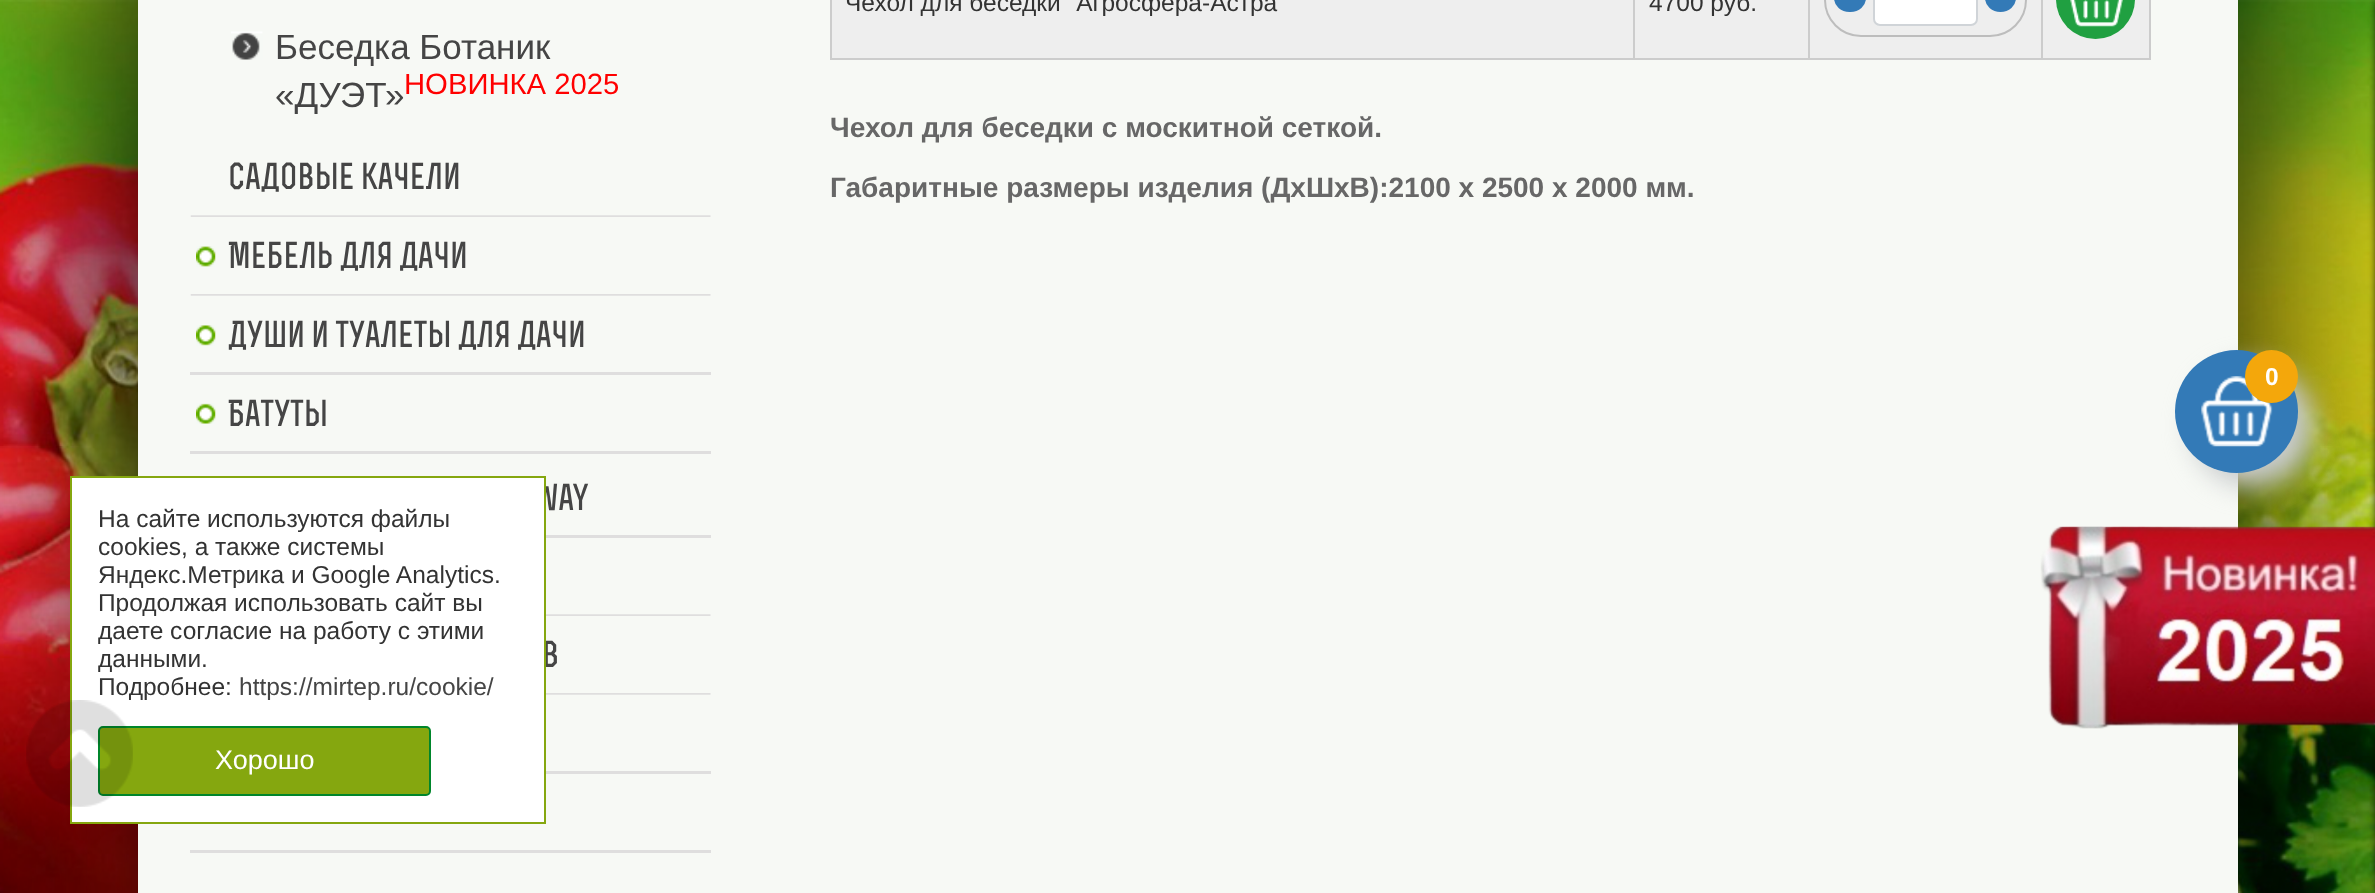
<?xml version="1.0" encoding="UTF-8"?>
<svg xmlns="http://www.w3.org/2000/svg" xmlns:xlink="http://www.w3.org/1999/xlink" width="2375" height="893">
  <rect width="100%" height="100%" fill="#ffffff" />
  <image x="0" y="0" width="2375" height="893" xlink:href="image1.png" />
  <rect x="140" y="-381" width="2100" height="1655" fill="#000000" filter="blur(127px)" />
  <rect x="138" width="2100" height="893" fill="#f7f9f5" />
  <image x="231" y="31" width="32" height="29" xlink:href="image2.png" />
  <image x="190" y="215" width="521" height="2" xlink:href="image3.png" />
  <image x="196" y="246" width="20" height="21" xlink:href="image4.png" />
  <image x="190" y="294" width="521" height="2" xlink:href="image5.png" />
  <image x="196" y="325" width="20" height="21" xlink:href="image6.png" />
  <rect x="190" y="372" width="521" height="3" fill="#dfdede" />
  <image x="196" y="403" width="20" height="21" xlink:href="image7.png" />
  <rect x="190" y="451" width="521" height="3" fill="#dfdede" />
  <rect x="546" y="535" width="165" height="3" fill="#dfdede" />
  <image x="546" y="614" width="165" height="2" xlink:href="image8.png" />
  <image x="546" y="693" width="165" height="2" xlink:href="image9.png" />
  <rect x="546" y="771" width="165" height="3" fill="#dfdede" />
  <rect x="190" y="850" width="521" height="3" fill="#dfdede" />
  <rect x="2149" width="2" height="60" fill="#cccccc" />
  <rect x="830" y="58" width="1321" height="2" fill="#cccccc" />
  <rect x="830" width="2" height="60" fill="#cccccc" />
  <rect x="832" width="1317" height="58" fill="#eeeeee" />
  <rect x="1633" width="2" height="60" fill="#cccccc" />
  <rect x="1808" width="2" height="60" fill="#cccccc" />
  <rect x="1825" y="-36" width="201" height="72" rx="36" fill="none" stroke="#bdbdbd" stroke-width="2" />
  <rect x="1834" y="-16" width="32" height="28" rx="15.5" fill="#337ab7" />
  <rect x="1874" y="-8" width="103" height="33" rx="6" fill="#ffffff" stroke="#d0d4d8" stroke-width="2" />
  <rect x="1985" y="-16" width="31" height="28" rx="15.5" fill="#337ab7" />
  <rect x="2041" width="2" height="60" fill="#cccccc" />
  <circle cx="2095.5" cy="-0.5" r="39.5" fill="#20a041" />
  <image x="2070" y="0" width="53" height="27" xlink:href="image10.png" />
  <rect x="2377" width="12" height="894" fill="#000000" filter="blur(4.5px)" />
  <rect x="2191" y="364" width="123" height="123" rx="61.5" fill="#c8cbcc" filter="blur(13px)" />
  <image x="2040" y="526" width="335" height="203" xlink:href="image11.png" />
  <circle cx="2236.5" cy="411.5" r="61.5" fill="#337ab7" />
  <image x="2201" y="376" width="72" height="71" xlink:href="image12.png" />
  <circle cx="2271.5" cy="376.5" r="26.5" fill="#f4a70b" />
  <text x="275" y="59" style="font-family: Liberation Sans; font-size: 35px; fill: #454545">Беседка Ботаник</text>
  <text x="275" y="107" style="font-family: Liberation Sans; font-size: 35px; fill: #454545">«ДУЭТ»</text>
  <text x="404" y="94" style="font-family: Liberation Sans; font-size: 29.25px; fill: #ff0000">НОВИНКА 2025</text>
  <text x="228" y="189" style="font-family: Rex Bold; font-size: 35px; font-weight: bold; fill: #454545">Садовые качели</text>
  <text x="228" y="268" style="font-family: Rex Bold; font-size: 35px; font-weight: bold; fill: #454545">Мебель для дачи</text>
  <text x="228" y="347" style="font-family: Rex Bold; font-size: 35px; font-weight: bold; fill: #454545">Души и туалеты для дачи</text>
  <text x="228" y="426" style="font-family: Rex Bold; font-size: 35px; font-weight: bold; fill: #454545">Батуты</text>
  <text x="534" y="510" style="font-family: Rex Bold; font-size: 35px; font-weight: bold; fill: #454545">Way</text>
  <text x="542" y="667" style="font-family: Rex Bold; font-size: 35px; font-weight: bold; fill: #454545">в</text>
  <text x="845" y="11" style="font-family: Liberation Sans; font-size: 24.5px; fill: #333333">Чехол для беседки "Агросфера-Астра</text>
  <text x="1649" y="11" style="font-family: Liberation Sans; font-size: 24.5px; fill: #333333">4700 руб.</text>
  <text x="830" y="137" style="font-family: Liberation Sans; font-size: 28px; font-weight: bold; fill: #676767">Чехол для беседки с москитной сеткой.</text>
  <text x="830" y="197" style="font-family: Liberation Sans; font-size: 28px; font-weight: bold; fill: #676767">Габаритные размеры изделия (ДхШхВ):2100 х 2500 х 2000 мм.</text>
  <text x="2265" y="385" style="font-family: Liberation Sans; font-size: 24.5px; font-weight: bold; fill: #ffffff">0</text>
  <rect x="71" y="477" width="474" height="346" fill="#ffffff" stroke="#85a70f" stroke-width="2" />
  <text x="98" y="527" style="font-family: Liberation Sans; font-size: 24.5px; fill: #333333">На сайте используются файлы</text>
  <text x="98" y="555" style="font-family: Liberation Sans; font-size: 24.5px; fill: #333333">cookies, а также системы</text>
  <text x="98" y="583" style="font-family: Liberation Sans; font-size: 24.5px; fill: #333333">Яндекс.Метрика и Google Analytics.</text>
  <text x="98" y="611" style="font-family: Liberation Sans; font-size: 24.5px; fill: #333333">Продолжая использовать сайт вы</text>
  <text x="98" y="639" style="font-family: Liberation Sans; font-size: 24.5px; fill: #333333">даете согласие на работу с этими</text>
  <text x="98" y="667" style="font-family: Liberation Sans; font-size: 24.5px; fill: #333333">данными.</text>
  <text x="98" y="695" style="font-family: Liberation Sans; font-size: 24.5px; fill: #333333">Подробнее:</text>
  <text x="239" y="695" style="font-family: Liberation Sans; font-size: 24.5px; fill: #454545">https://mirtep.ru/cookie/</text>
  <rect x="99" y="727" width="331" height="68" rx="4" fill="#85a70f" stroke="#00862b" stroke-width="2" />
  <image x="26" y="700" width="107" height="107" xlink:href="image13.png" />
  <text x="215" y="769" style="font-family: Liberation Sans; font-size: 27px; fill: #ffffff">Хорошо</text>
</svg>
